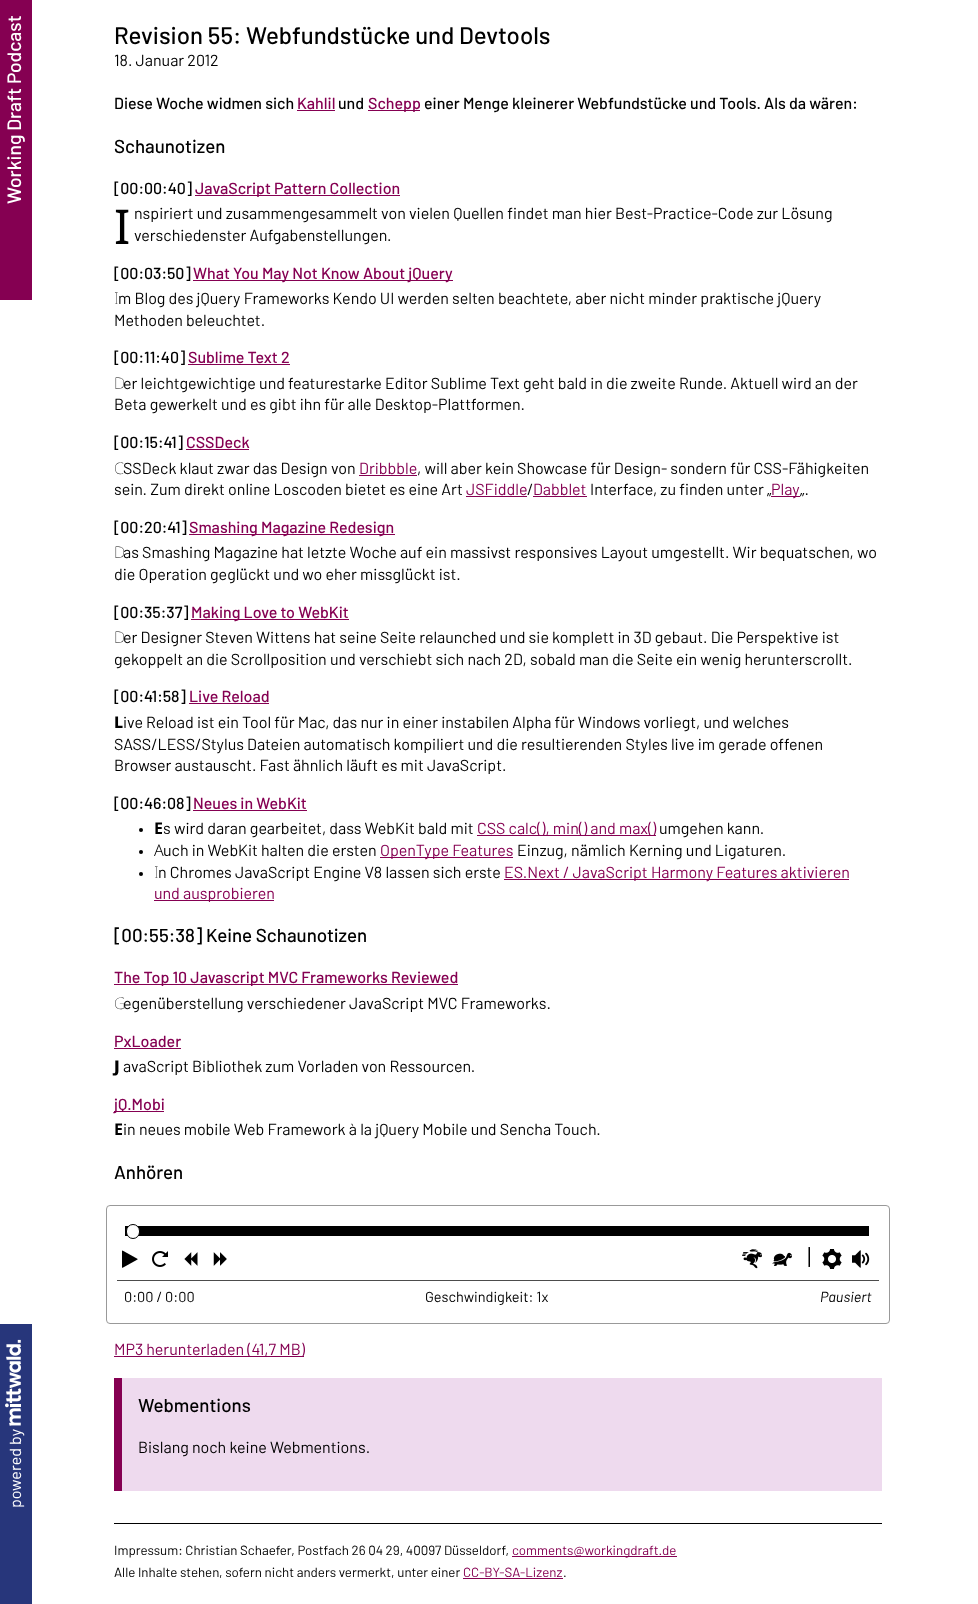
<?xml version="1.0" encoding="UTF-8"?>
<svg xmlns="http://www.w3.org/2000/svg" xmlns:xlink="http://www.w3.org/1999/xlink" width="978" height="1604">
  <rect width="100%" height="100%" fill="#ffffff" />
  <rect width="32" height="300" fill="#850052" />
  <rect x="297" y="110" width="38" height="1" fill="#850052" />
  <rect x="368" y="110" width="52" height="1" fill="#850052" />
  <rect x="195" y="195" width="205" height="1" fill="#850052" />
  <rect x="193" y="280" width="260" height="1" fill="#850052" />
  <rect x="188" y="364" width="102" height="1" fill="#850052" />
  <rect x="186" y="449" width="63" height="1" fill="#850052" />
  <rect x="359" y="475" width="58" height="1" fill="#850052" />
  <rect x="466" y="496" width="61" height="1" fill="#850052" />
  <rect x="533" y="496" width="54" height="1" fill="#850052" />
  <rect x="189" y="534" width="206" height="1" fill="#850052" />
  <rect x="191" y="619" width="158" height="1" fill="#850052" />
  <rect x="189" y="703" width="80" height="1" fill="#850052" />
  <rect x="193" y="810" width="114" height="1" fill="#850052" />
  <circle cx="141" cy="830" r="2" fill="#000000" />
  <rect x="477" y="835" width="179" height="1" fill="#850052" />
  <circle cx="141" cy="852" r="2" fill="#000000" />
  <rect x="380" y="857" width="133" height="1" fill="#850052" />
  <circle cx="141" cy="874" r="2" fill="#000000" />
  <rect x="504" y="879" width="345" height="1" fill="#850052" />
  <rect x="154" y="900" width="120" height="1" fill="#850052" />
  <rect x="114" y="984" width="344" height="1" fill="#850052" />
  <rect x="114" y="1048" width="67" height="1" fill="#850052" />
  <rect x="114" y="1111" width="50" height="1" fill="#850052" />
  <rect x="106.5" y="1205.5" width="783" height="118" rx="3.5" fill="none" stroke="#999999" />
  <rect x="117" y="1280" width="762" height="1" fill="#4c4c4c" />
  <rect x="125" y="1226" width="744" height="10" fill="#000000" />
  <rect x="126.5" y="1224.5" width="13" height="14" rx="6.5" fill="#fdfdfd" stroke="#000000" />
  <image x="122" y="1250" width="16" height="18" xlink:href="image1.png" />
  <image x="152" y="1251" width="16" height="16" xlink:href="image2.png" />
  <image x="184" y="1252" width="14" height="14" xlink:href="image3.png" />
  <image x="213" y="1252" width="14" height="14" xlink:href="image4.png" />
  <image x="742" y="1249" width="20" height="20" xlink:href="image5.png" />
  <image x="772" y="1252" width="20" height="14" xlink:href="image6.png" />
  <image x="808" y="1247" width="2" height="20" xlink:href="image7.png" />
  <image x="822" y="1249" width="20" height="20" xlink:href="image8.png" />
  <image x="852" y="1250" width="18" height="18" xlink:href="image9.png" />
  <rect x="114" y="1356" width="190" height="1" fill="#850052" />
  <rect x="122" y="1378" width="760" height="113" fill="#eedaee" />
  <rect x="114" y="1378" width="8" height="113" fill="#850052" />
  <rect x="114" y="1523" width="768" height="1" fill="#000000" />
  <rect y="1324" width="32" height="280" fill="#27367b" />
  <image x="5" y="1339" width="16" height="87" xlink:href="image10.png" />
  <rect x="512" y="1556" width="165" height="1" fill="#850052" />
  <rect x="463" y="1578" width="100" height="1" fill="#850052" />
  <text x="21" y="204" transform="rotate(-90 21 204)" style="font-family: Barlow; font-size: 19.25px; font-weight: 500; fill: #ffffff">Working Draft Podcast</text>
  <text x="114" y="44" style="font-family: Barlow; font-size: 24px; font-weight: 500; fill: #000000">Revision 55: Webfundstücke und Devtools</text>
  <text x="114" y="66" style="font-family: Barlow; font-size: 16px; fill: #000000">18. Januar 2012</text>
  <text x="114" y="109" style="font-family: Barlow; font-size: 16px; font-weight: 500; fill: #000000">Diese Woche widmen sich</text>
  <text x="297" y="109" style="font-family: Barlow; font-size: 16px; font-weight: 500; fill: #850052">Kahlil</text>
  <text x="338" y="109" style="font-family: Barlow; font-size: 16px; font-weight: 500; fill: #000000">und</text>
  <text x="368" y="109" style="font-family: Barlow; font-size: 16px; font-weight: 500; fill: #850052">Schepp</text>
  <text x="424" y="109" style="font-family: Barlow; font-size: 16px; font-weight: 500; fill: #000000">einer Menge kleinerer Webfundstücke und Tools. Als da wären:</text>
  <text x="114" y="153" style="font-family: Barlow; font-size: 18.75px; font-weight: 500; fill: #000000">Schaunotizen</text>
  <text x="114" y="194" style="font-family: Barlow; font-size: 16px; font-weight: 500; fill: #000000">[00:00:40]</text>
  <text x="195" y="194" style="font-family: Barlow; font-size: 16px; font-weight: 500; fill: #850052">JavaScript Pattern Collection</text>
  <text x="114" y="244" style="font-family: Noto Sans; font-size: 48px; fill: #000000">I</text>
  <text x="134" y="219" style="font-family: Barlow; font-size: 16px; fill: #000000">nspiriert und zusammengesammelt von vielen Quellen findet man hier Best-Practice-Code zur Lösung</text>
  <text x="134" y="241" style="font-family: Barlow; font-size: 16px; fill: #000000">verschiedenster Aufgabenstellungen.</text>
  <text x="114" y="279" style="font-family: Barlow; font-size: 16px; font-weight: 500; fill: #000000">[00:03:50]</text>
  <text x="193" y="279" style="font-family: Barlow; font-size: 16px; font-weight: 500; fill: #850052">What You May Not Know About jQuery</text>
  <text x="114" y="304" style="font-family: Noto Sans; font-size: 16px; font-weight: 100; fill: #000000">I</text>
  <text x="118" y="304" style="font-family: Barlow; font-size: 16px; fill: #000000">m Blog des jQuery Frameworks Kendo UI werden selten beachtete, aber nicht minder praktische jQuery</text>
  <text x="114" y="326" style="font-family: Barlow; font-size: 16px; fill: #000000">Methoden beleuchtet.</text>
  <text x="114" y="363" style="font-family: Barlow; font-size: 16px; font-weight: 500; fill: #000000">[00:11:40]</text>
  <text x="188" y="363" style="font-family: Barlow; font-size: 16px; font-weight: 500; fill: #850052">Sublime Text 2</text>
  <text x="114" y="389" style="font-family: Noto Sans; font-size: 16px; font-weight: 100; fill: #000000">D</text>
  <text x="123" y="389" style="font-family: Barlow; font-size: 16px; fill: #000000">er leichtgewichtige und featurestarke Editor Sublime Text geht bald in die zweite Runde. Aktuell wird an der</text>
  <text x="114" y="410" style="font-family: Barlow; font-size: 16px; fill: #000000">Beta gewerkelt und es gibt ihn für alle Desktop-Plattformen.</text>
  <text x="114" y="448" style="font-family: Barlow; font-size: 16px; font-weight: 500; fill: #000000">[00:15:41]</text>
  <text x="186" y="448" style="font-family: Barlow; font-size: 16px; font-weight: 500; fill: #850052">CSSDeck</text>
  <text x="114" y="474" style="font-family: Noto Sans; font-size: 16px; font-weight: 100; fill: #000000">C</text>
  <text x="123" y="474" style="font-family: Barlow; font-size: 16px; fill: #000000">SSDeck klaut zwar das Design von</text>
  <text x="359" y="474" style="font-family: Barlow; font-size: 16px; fill: #850052">Dribbble</text>
  <text x="417" y="474" style="font-family: Barlow; font-size: 16px; fill: #000000">, will aber kein Showcase für Design- sondern für CSS-Fähigkeiten</text>
  <text x="114" y="495" style="font-family: Barlow; font-size: 16px; fill: #000000">sein. Zum direkt online Loscoden bietet es eine Art</text>
  <text x="466" y="495" style="font-family: Barlow; font-size: 16px; fill: #850052">JSFiddle</text>
  <text x="527" y="495" style="font-family: Barlow; font-size: 16px; fill: #000000">/</text>
  <text x="533" y="495" style="font-family: Barlow; font-size: 16px; fill: #850052">Dabblet</text>
  <text x="590" y="495" style="font-family: Barlow; font-size: 16px; fill: #000000">Interface, zu finden unter „</text>
  <rect x="771" y="496" width="29" height="1" fill="#850052" />
  <text x="771" y="495" style="font-family: Barlow; font-size: 16px; fill: #850052">Play</text>
  <text x="800" y="495" style="font-family: Barlow; font-size: 16px; fill: #000000">„.</text>
  <text x="114" y="533" style="font-family: Barlow; font-size: 16px; font-weight: 500; fill: #000000">[00:20:41]</text>
  <text x="189" y="533" style="font-family: Barlow; font-size: 16px; font-weight: 500; fill: #850052">Smashing Magazine Redesign</text>
  <text x="123" y="558" style="font-family: Barlow; font-size: 16px; fill: #000000">as Smashing Magazine hat letzte Woche auf ein massivst responsives Layout umgestellt. Wir bequatschen, wo</text>
  <text x="114" y="580" style="font-family: Barlow; font-size: 16px; fill: #000000">die Operation geglückt und wo eher missglückt ist.</text>
  <text x="114" y="558" style="font-family: Noto Sans; font-size: 16px; font-weight: 100; fill: #000000">D</text>
  <text x="114" y="618" style="font-family: Barlow; font-size: 16px; font-weight: 500; fill: #000000">[00:35:37]</text>
  <text x="191" y="618" style="font-family: Barlow; font-size: 16px; font-weight: 500; fill: #850052">Making Love to WebKit</text>
  <text x="123" y="643" style="font-family: Barlow; font-size: 16px; fill: #000000">er Designer Steven Wittens hat seine Seite relaunched und sie komplett in 3D gebaut. Die Perspektive ist</text>
  <text x="114" y="665" style="font-family: Barlow; font-size: 16px; fill: #000000">gekoppelt an die Scrollposition und verschiebt sich nach 2D, sobald man die Seite ein wenig herunterscrollt.</text>
  <text x="114" y="643" style="font-family: Noto Sans; font-size: 16px; font-weight: 100; fill: #000000">D</text>
  <text x="114" y="702" style="font-family: Barlow; font-size: 16px; font-weight: 500; fill: #000000">[00:41:58]</text>
  <text x="189" y="702" style="font-family: Barlow; font-size: 16px; font-weight: 500; fill: #850052">Live Reload</text>
  <text x="114" y="728" style="font-family: Noto Sans; font-size: 16px; font-weight: 800; fill: #000000">L</text>
  <text x="123" y="728" style="font-family: Barlow; font-size: 16px; fill: #000000">ive Reload ist ein Tool für Mac, das nur in einer instabilen Alpha für Windows vorliegt, und welches</text>
  <text x="114" y="750" style="font-family: Barlow; font-size: 16px; fill: #000000">SASS/LESS/Stylus Dateien automatisch kompiliert und die resultierenden Styles live im gerade offenen</text>
  <text x="114" y="771" style="font-family: Barlow; font-size: 16px; fill: #000000">Browser austauscht. Fast ähnlich läuft es mit JavaScript.</text>
  <text x="114" y="809" style="font-family: Barlow; font-size: 16px; font-weight: 500; fill: #000000">[00:46:08]</text>
  <text x="193" y="809" style="font-family: Barlow; font-size: 16px; font-weight: 500; fill: #850052">Neues in WebKit</text>
  <text x="154" y="834" style="font-family: Noto Sans; font-size: 16px; font-weight: bold; fill: #000000">E</text>
  <text x="163" y="834" style="font-family: Barlow; font-size: 16px; fill: #000000">s wird daran gearbeitet, dass WebKit bald mit</text>
  <text x="477" y="834" style="font-family: Barlow; font-size: 16px; fill: #850052">CSS calc(), min() and max()</text>
  <text x="659" y="834" style="font-family: Barlow; font-size: 16px; fill: #000000">umgehen kann.</text>
  <text x="154" y="856" style="font-family: Noto Sans; font-size: 16px; font-weight: 300; fill: #000000">A</text>
  <text x="163" y="856" style="font-family: Barlow; font-size: 16px; fill: #000000">uch in WebKit halten die ersten</text>
  <text x="380" y="856" style="font-family: Barlow; font-size: 16px; fill: #850052">OpenType Features</text>
  <text x="517" y="856" style="font-family: Barlow; font-size: 16px; fill: #000000">Einzug, nämlich Kerning und Ligaturen.</text>
  <text x="154" y="878" style="font-family: Noto Sans; font-size: 16px; font-weight: 100; fill: #000000">I</text>
  <text x="158" y="878" style="font-family: Barlow; font-size: 16px; fill: #000000">n Chromes JavaScript Engine V8 lassen sich erste</text>
  <text x="504" y="878" style="font-family: Barlow; font-size: 16px; fill: #850052">ES.Next / JavaScript Harmony Features aktivieren</text>
  <text x="154" y="899" style="font-family: Barlow; font-size: 16px; fill: #850052">und ausprobieren</text>
  <text x="114" y="942" style="font-family: Barlow; font-size: 18.75px; font-weight: 500; fill: #000000">[00:55:38] Keine Schaunotizen</text>
  <text x="114" y="983" style="font-family: Barlow; font-size: 16px; font-weight: 500; fill: #850052">The Top 10 Javascript MVC Frameworks Reviewed</text>
  <text x="114" y="1009" style="font-family: Noto Sans; font-size: 16px; font-weight: 100; fill: #000000">G</text>
  <text x="123" y="1009" style="font-family: Barlow; font-size: 16px; fill: #000000">egenüberstellung verschiedener JavaScript MVC Frameworks.</text>
  <text x="114" y="1047" style="font-family: Barlow; font-size: 16px; font-weight: 500; fill: #850052">PxLoader</text>
  <text x="114" y="1072" style="font-family: Noto Sans; font-size: 16px; font-weight: 900; fill: #000000">J</text>
  <text x="123" y="1072" style="font-family: Barlow; font-size: 16px; fill: #000000">avaScript Bibliothek zum Vorladen von Ressourcen.</text>
  <text x="114" y="1110" style="font-family: Barlow; font-size: 16px; font-weight: 500; fill: #850052">jQ.Mobi</text>
  <text x="114" y="1135" style="font-family: Noto Sans; font-size: 16px; font-weight: bold; fill: #000000">E</text>
  <text x="123" y="1135" style="font-family: Barlow; font-size: 16px; fill: #000000">in neues mobile Web Framework à la jQuery Mobile und Sencha Touch.</text>
  <text x="114" y="1179" style="font-family: Barlow; font-size: 18.75px; font-weight: 500; fill: #000000">Anhören</text>
  <text x="124" y="1302" style="font-family: Barlow; font-size: 14.5px; fill: #000000">0:00 / 0:00</text>
  <text x="425" y="1302" style="font-family: Barlow; font-size: 14.5px; fill: #000000">Geschwindigkeit: 1x</text>
  <text x="820" y="1302" style="font-family: Barlow; font-size: 14.5px; font-style: italic; fill: #000000">Pausiert</text>
  <text x="114" y="1355" style="font-family: Barlow; font-size: 16px; fill: #850052">MP3 herunterladen (41,7 MB)</text>
  <text x="138" y="1412" style="font-family: Barlow; font-size: 18.75px; font-weight: 500; fill: #000000">Webmentions</text>
  <text x="138" y="1453" style="font-family: Barlow; font-size: 16px; fill: #000000">Bislang noch keine Webmentions.</text>
  <text x="21" y="1508" transform="rotate(-90 21 1508)" style="font-family: Barlow; font-size: 16px; fill: #ffffff">powered by</text>
  <text x="114" y="1555" style="font-family: Barlow; font-size: 13.3px; fill: #000000">Impressum: Christian Schaefer, Postfach 26 04 29, 40097 Düsseldorf,</text>
  <text x="512" y="1555" style="font-family: Barlow; font-size: 13.3px; fill: #850052">comments@workingdraft.de</text>
  <text x="114" y="1577" style="font-family: Barlow; font-size: 13.3px; fill: #000000">Alle Inhalte stehen, sofern nicht anders vermerkt, unter einer</text>
  <text x="463" y="1577" style="font-family: Barlow; font-size: 13.3px; fill: #850052">CC-BY-SA-Lizenz</text>
  <text x="563" y="1577" style="font-family: Barlow; font-size: 13.3px; fill: #000000">.</text>
</svg>
